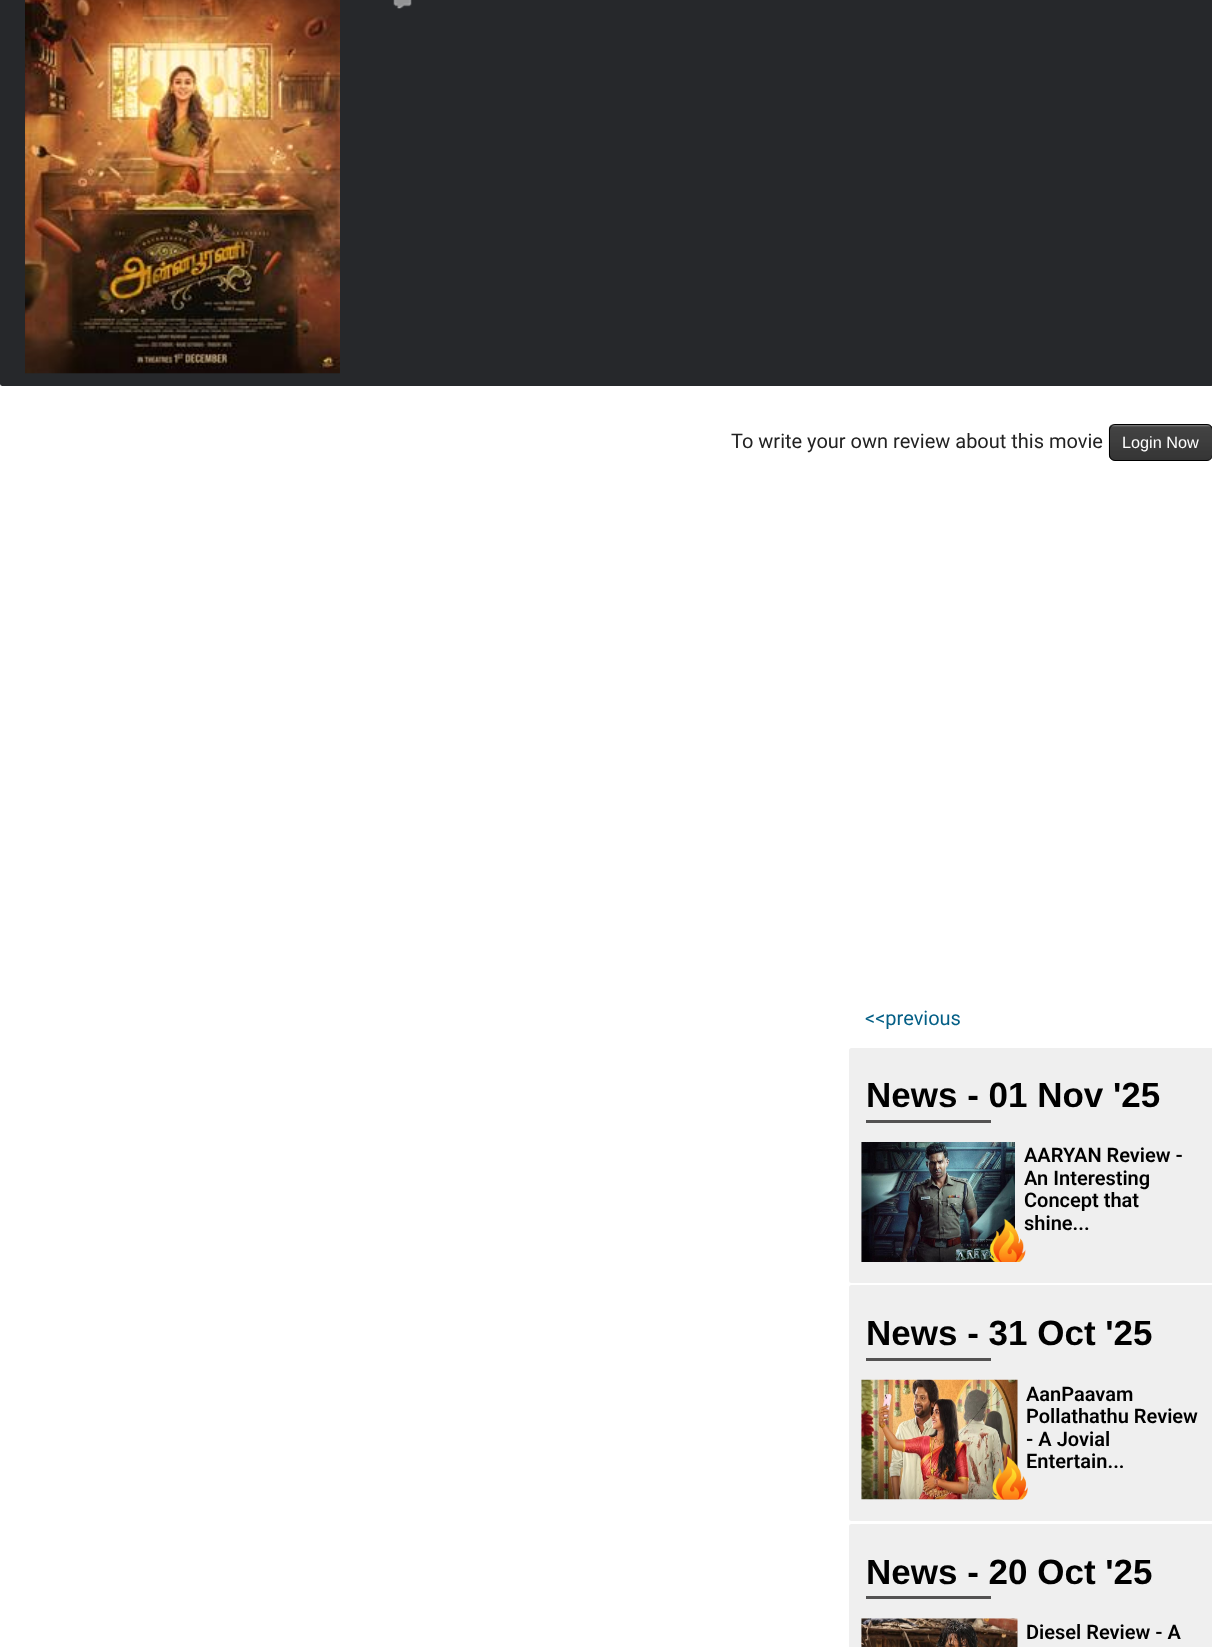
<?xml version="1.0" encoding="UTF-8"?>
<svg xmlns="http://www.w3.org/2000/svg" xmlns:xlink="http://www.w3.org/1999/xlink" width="1212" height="1647">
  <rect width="100%" height="100%" fill="#ffffff" />
  <rect y="-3" width="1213" height="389" rx="2.5" fill="#26282b" />
  <image x="25" y="0" width="315" height="374" xlink:href="image1.png" />
  <image x="393" y="0" width="19" height="9" xlink:href="image2.png" />
  <image x="1108" y="424" width="104" height="37" xlink:href="image3.png" />
  <rect x="1109.5" y="424.5" width="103" height="36" rx="5.5" fill="none" stroke="#000000" />
  <rect x="849" y="1048" width="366" height="235" rx="2.5" fill="#efefef" />
  <rect x="866" y="1120" width="125" height="3" fill="#535252" />
  <image x="861" y="1142" width="154" height="120" xlink:href="image4.png" />
  <image x="989" y="1218" width="37" height="44" xlink:href="image5.png" />
  <rect x="849" y="1285" width="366" height="236" rx="2.5" fill="#efefef" />
  <rect x="866" y="1358" width="125" height="3" fill="#535252" />
  <image x="861" y="1379" width="157" height="121" xlink:href="image6.png" />
  <image x="992" y="1456" width="36" height="44" xlink:href="image7.png" />
  <rect x="849" y="1524" width="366" height="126" rx="2.5" fill="#efefef" />
  <rect x="866" y="1596" width="125" height="3" fill="#535252" />
  <image x="861" y="1618" width="157" height="29" xlink:href="image8.png" />
  <text x="731" y="448" style="font-family: Roboto; font-size: 20px; fill: #222222">To write your own review about this movie</text>
  <text x="1122" y="448" style="font-family: Liberation Sans; font-size: 16.25px; fill: #ffffff">Login Now</text>
  <text x="865" y="1025" style="font-family: Roboto; font-size: 20px; fill: #045f86">&lt;&lt;previous</text>
  <text x="866" y="1107" style="font-family: Liberation Sans; font-size: 35px; font-weight: bold; fill: #000000">News - 01 Nov '25</text>
  <text x="1024" y="1162" style="font-family: Roboto; font-size: 20px; font-weight: 600; fill: #000000">AARYAN Review -</text>
  <text x="1024" y="1185" style="font-family: Roboto; font-size: 20px; font-weight: 600; fill: #000000">An Interesting</text>
  <text x="1024" y="1207" style="font-family: Roboto; font-size: 20px; font-weight: 600; fill: #000000">Concept that</text>
  <text x="1024" y="1230" style="font-family: Roboto; font-size: 20px; font-weight: 600; fill: #000000">shine...</text>
  <text x="866" y="1345" style="font-family: Liberation Sans; font-size: 35px; font-weight: bold; fill: #000000">News - 31 Oct '25</text>
  <text x="1026" y="1401" style="font-family: Roboto; font-size: 20px; font-weight: 600; fill: #000000">AanPaavam</text>
  <text x="1026" y="1423" style="font-family: Roboto; font-size: 20px; font-weight: 600; fill: #000000">Pollathathu Review</text>
  <text x="1026" y="1446" style="font-family: Roboto; font-size: 20px; font-weight: 600; fill: #000000">- A Jovial</text>
  <text x="1026" y="1468" style="font-family: Roboto; font-size: 20px; font-weight: 600; fill: #000000">Entertain...</text>
  <text x="866" y="1584" style="font-family: Liberation Sans; font-size: 35px; font-weight: bold; fill: #000000">News - 20 Oct '25</text>
  <text x="1026" y="1639" style="font-family: Roboto; font-size: 20px; font-weight: 600; fill: #000000">Diesel Review - A</text>
</svg>
